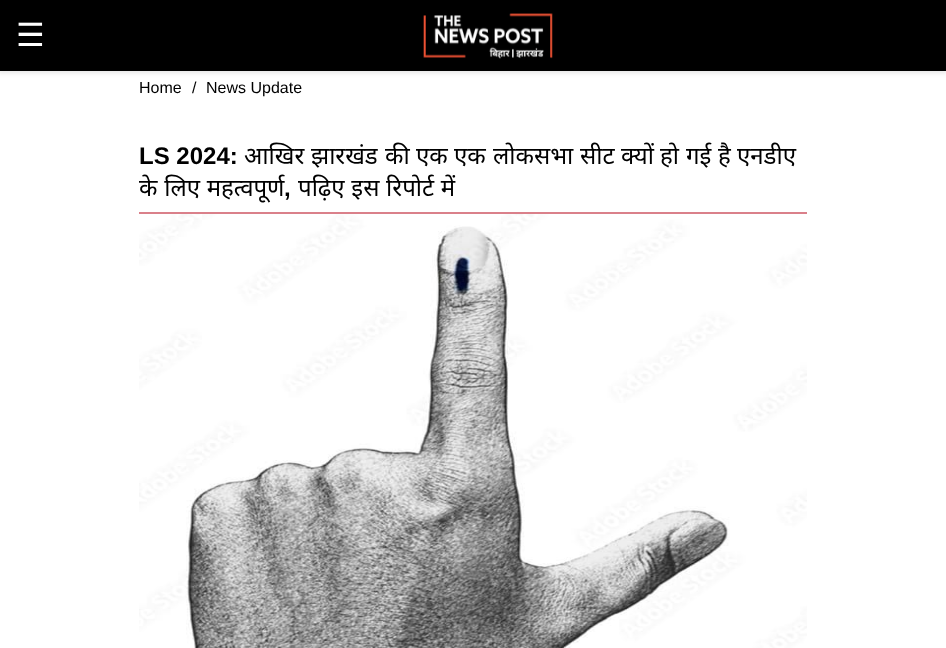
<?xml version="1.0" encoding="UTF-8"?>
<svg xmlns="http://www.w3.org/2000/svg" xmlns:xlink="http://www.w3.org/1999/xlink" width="946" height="648">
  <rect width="100%" height="100%" fill="#ffffff" />
  <rect x="-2" y="-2" width="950" height="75" fill="#000000" fill-opacity="0.1" filter="blur(2.5px)" />
  <rect width="946" height="71" fill="#000000" />
  <image x="423" y="13" width="130" height="46" xlink:href="image1.png" />
  <rect x="139" y="212" width="668" height="2" fill="#da808a" />
  <image x="139" y="214" width="668" height="434" xlink:href="image2.png" />
  <text x="16" y="46" style="font-family: DejaVu Sans; font-size: 32px; fill: #ffffff">☰</text>
  <text x="139" y="93" style="font-family: Liberation Sans; font-size: 16px; fill: #000000">Home</text>
  <text x="192" y="93" style="font-family: Liberation Sans; font-size: 16px; fill: #000000">/</text>
  <text x="206" y="93" style="font-family: Liberation Sans; font-size: 16px; fill: #000000">News Update</text>
  <text x="139" y="164" style="font-family: Liberation Sans; font-size: 24px; font-weight: bold; fill: #000000">LS 2024:</text>
  <text x="244" y="164" style="font-family: Noto Sans; font-size: 24px; fill: #000000">आखिर</text>
  <text x="311" y="164" style="font-family: Noto Sans; font-size: 24px; fill: #000000">झारखंड</text>
  <text x="385" y="164" style="font-family: Noto Sans; font-size: 24px; fill: #000000">की</text>
  <text x="416" y="164" style="font-family: Noto Sans; font-size: 24px; fill: #000000">एक</text>
  <text x="454" y="164" style="font-family: Noto Sans; font-size: 24px; fill: #000000">एक</text>
  <text x="493" y="164" style="font-family: Noto Sans; font-size: 24px; fill: #000000">लोकसभा</text>
  <text x="580" y="164" style="font-family: Noto Sans; font-size: 24px; fill: #000000">सीट</text>
  <text x="621" y="164" style="font-family: Noto Sans; font-size: 24px; fill: #000000">क्यों</text>
  <text x="660" y="164" style="font-family: Noto Sans; font-size: 24px; fill: #000000">हो</text>
  <text x="686" y="164" style="font-family: Noto Sans; font-size: 24px; fill: #000000">गई</text>
  <text x="718" y="164" style="font-family: Noto Sans; font-size: 24px; fill: #000000">है</text>
  <text x="737" y="164" style="font-family: Noto Sans; font-size: 24px; fill: #000000">एनडीए</text>
  <text x="139" y="196" word-spacing="0.5" style="font-family: Noto Sans; font-size: 24px; fill: #000000">के लिए महत्वपूर्ण</text>
  <text x="284" y="196" style="font-family: Liberation Sans; font-size: 24px; font-weight: bold; fill: #000000">,</text>
  <text x="298" y="196" word-spacing="0.5" style="font-family: Noto Sans; font-size: 24px; fill: #000000">पढ़िए इस रिपोर्ट में</text>
</svg>
